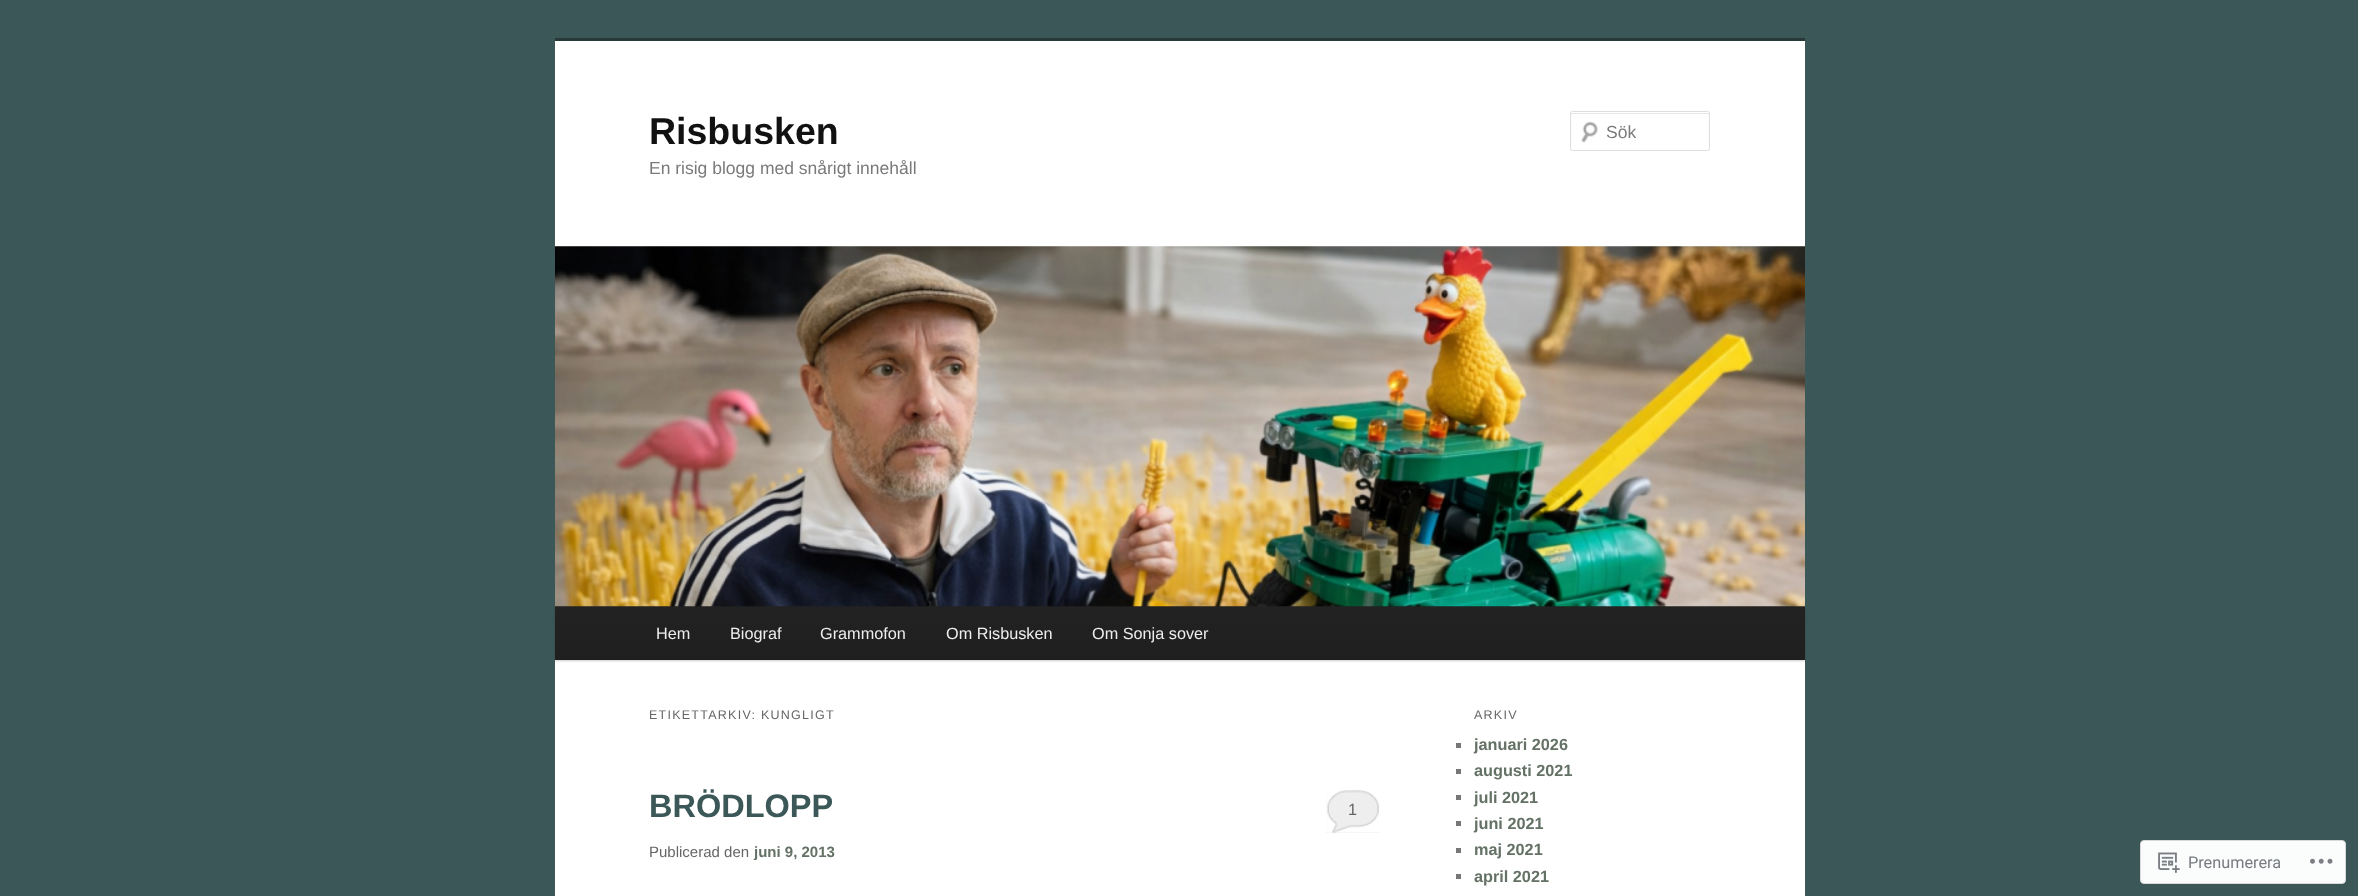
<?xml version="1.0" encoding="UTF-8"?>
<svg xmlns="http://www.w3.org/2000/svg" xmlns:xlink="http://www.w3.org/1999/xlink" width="2358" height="896">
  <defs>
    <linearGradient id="g1" gradientUnits="userSpaceOnUse" x1="1180" y1="606" x2="1180" y2="660"><stop offset="0" stop-color="#222222" /><stop offset="1" stop-color="#1f1f1f" /></linearGradient>
  </defs>
  <rect width="100%" height="100%" fill="#3c5757" />
  <rect x="555" y="41" width="1250" height="855" fill="#ffffff" />
  <rect x="555" y="38" width="1250" height="3" fill="#273939" />
  <image x="1581" y="121" width="17" height="22" xlink:href="image1.png" />
  <path d="M 1572 114 h 136 l 1 1 c 0 -1 0 -2 -1 -2 h -136 c -1 0 -1 1 -1 2 z" fill="#e6e6e6" />
  <rect x="1570.5" y="111.5" width="139" height="39" rx="2" fill="none" stroke="#dddddd" />
  <rect x="555" y="608" width="1250" height="53" fill="#000000" fill-opacity="0.2" filter="blur(1px)" />
  <rect x="555" y="606" width="1250" height="54" fill="url(#g1)" />
  <image x="555" y="246" width="1250" height="361" xlink:href="image2.png" />
  <rect x="1326" y="788" width="54" height="45" fill="#eeeeee" />
  <image x="1326" y="788" width="54" height="45" xlink:href="image3.png" />
  <rect x="1456" y="743" width="5" height="5" fill="#777777" />
  <rect x="1456" y="769" width="5" height="5" fill="#777777" />
  <rect x="1456" y="795" width="5" height="5" fill="#777777" />
  <rect x="1456" y="821" width="5" height="5" fill="#777777" />
  <rect x="1456" y="848" width="5" height="5" fill="#777777" />
  <rect x="1456" y="874" width="5" height="5" fill="#777777" />
  <rect x="2140.5" y="840.5" width="205" height="43" rx="3.5" fill="#fbfcfc" stroke="#d9d9db" />
  <image x="2158" y="852" width="22" height="21" xlink:href="image4.png" />
  <image x="2310" y="858" width="23" height="6" xlink:href="image5.png" />
  <text x="649" y="144" style="font-family: Liberation Sans; font-size: 37.5px; font-weight: bold; fill: #111111">Risbusken</text>
  <text x="649" y="174" style="font-family: Liberation Sans; font-size: 17.5px; fill: #7a7a7a">En risig blogg med snårigt innehåll</text>
  <text x="1606" y="138" style="font-family: Liberation Sans; font-size: 17.5px; fill: #7a7a7a">Sök</text>
  <text x="656" y="639" style="font-family: Liberation Sans; font-size: 16.25px; fill: #eeeeee">Hem</text>
  <text x="730" y="639" style="font-family: Liberation Sans; font-size: 16.25px; fill: #eeeeee">Biograf</text>
  <text x="820" y="639" style="font-family: Liberation Sans; font-size: 16.25px; fill: #eeeeee">Grammofon</text>
  <text x="946" y="639" style="font-family: Liberation Sans; font-size: 16.25px; fill: #eeeeee">Om Risbusken</text>
  <text x="1092" y="639" style="font-family: Liberation Sans; font-size: 16.25px; fill: #eeeeee">Om Sonja sover</text>
  <text x="649" y="719" style="font-family: Liberation Sans; font-size: 12.5px; letter-spacing: 1.25px; fill: #666666">ETIKETTARKIV: KUNGLIGT</text>
  <text x="649" y="817" style="font-family: Liberation Sans; font-size: 32.5px; font-weight: bold; fill: #3c5757">BRÖDLOPP</text>
  <text x="1348" y="815" style="font-family: Liberation Sans; font-size: 16.25px; fill: #666666">1</text>
  <text x="649" y="857" style="font-family: Liberation Sans; font-size: 15px; fill: #666666">Publicerad den</text>
  <text x="754" y="857" style="font-family: Liberation Sans; font-size: 15px; font-weight: bold; fill: #647165">juni 9, 2013</text>
  <text x="1474" y="719" style="font-family: Liberation Sans; font-size: 12.5px; letter-spacing: 1.25px; fill: #666666">ARKIV</text>
  <text x="1474" y="750" style="font-family: Liberation Sans; font-size: 16.25px; font-weight: bold; fill: #647165">januari 2026</text>
  <text x="1474" y="776" style="font-family: Liberation Sans; font-size: 16.25px; font-weight: bold; fill: #647165">augusti 2021</text>
  <text x="1474" y="803" style="font-family: Liberation Sans; font-size: 16.25px; font-weight: bold; fill: #647165">juli 2021</text>
  <text x="1474" y="829" style="font-family: Liberation Sans; font-size: 16.25px; font-weight: bold; fill: #647165">juni 2021</text>
  <text x="1474" y="855" style="font-family: Liberation Sans; font-size: 16.25px; font-weight: bold; fill: #647165">maj 2021</text>
  <text x="1474" y="882" style="font-family: Liberation Sans; font-size: 16.25px; font-weight: bold; fill: #647165">april 2021</text>
  <text x="2188" y="868" style="font-family: Roboto; font-size: 16.25px; fill: #777b81">Prenumerera</text>
</svg>
